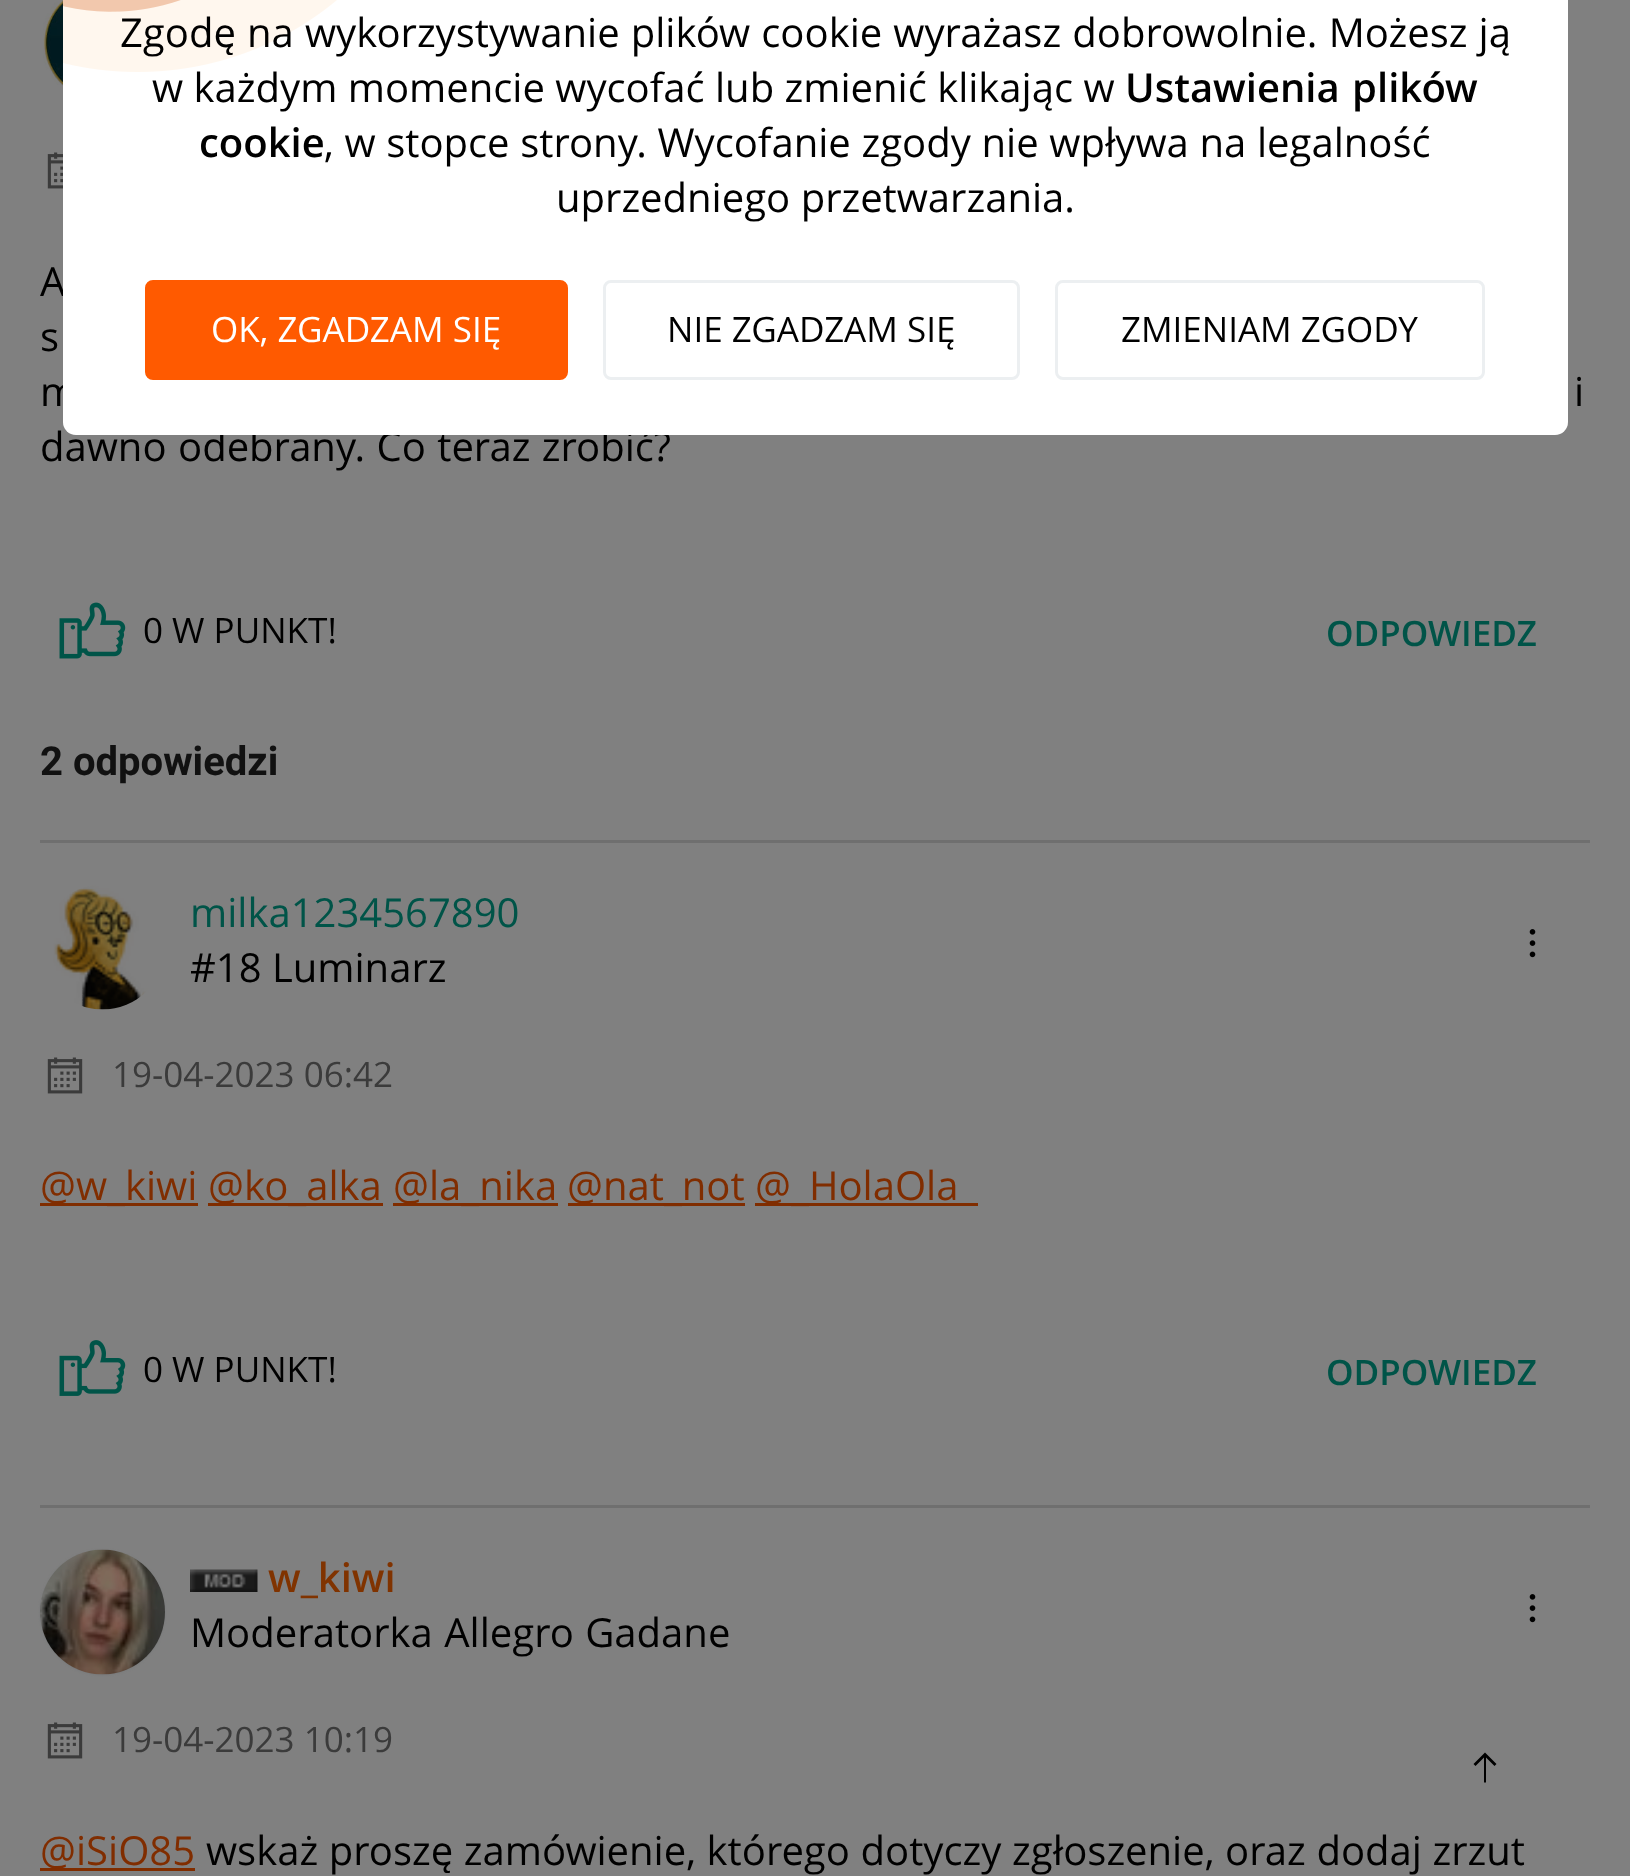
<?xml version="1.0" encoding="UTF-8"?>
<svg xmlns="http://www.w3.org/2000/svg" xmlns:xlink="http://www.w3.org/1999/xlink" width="1630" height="1876">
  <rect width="100%" height="100%" fill="#808080" />
  <image x="43" y="0" width="20" height="91" xlink:href="image2.png" />
  <image x="47" y="152" width="16" height="37" xlink:href="image3.png" />
  <image x="59" y="602" width="67" height="57" xlink:href="image4.png" />
  <rect x="40" y="840" width="1550" height="3" fill="#6f6f6f" />
  <image x="53" y="885" width="98" height="125" xlink:href="image5.png" />
  <image x="1529" y="929" width="7" height="29" xlink:href="image6.png" />
  <image x="47" y="1057" width="36" height="37" xlink:href="image7.png" />
  <rect x="40" y="1203" width="158" height="3" fill="#802d00" />
  <rect x="208" y="1203" width="175" height="3" fill="#802d00" />
  <rect x="393" y="1203" width="165" height="3" fill="#802d00" />
  <rect x="568" y="1203" width="177" height="3" fill="#802d00" />
  <rect x="755" y="1203" width="223" height="3" fill="#802d00" />
  <image x="59" y="1340" width="67" height="56" xlink:href="image8.png" />
  <rect x="40" y="1505" width="1550" height="3" fill="#6f6f6f" />
  <rect x="40" y="1550" width="125" height="125" rx="62.5" fill="#767879" filter="blur(1px)" />
  <image x="40" y="1549" width="125" height="126" xlink:href="image9.png" />
  <image x="190" y="1569" width="68" height="23" xlink:href="image10.png" />
  <image x="1529" y="1594" width="7" height="29" xlink:href="image6.png" />
  <image x="47" y="1722" width="36" height="37" xlink:href="image7.png" />
  <rect x="40" y="1868" width="155" height="3" fill="#802d00" />
  <path d="M 1485 1752.5 l 11.5 11.5 l -2 2 l -8.5 -8.5 v 25 h -2 v -25 l -8.5 8.5 l -2 -2 z" fill="#000000" />
  <text x="40" y="296" word-spacing="0.25" style="font-family: Open Sans; font-size: 40px; fill: #000000">A</text>
  <text x="40" y="351" style="font-family: Open Sans; font-size: 40px; fill: #000000">s</text>
  <text x="40" y="406" style="font-family: Open Sans; font-size: 40px; fill: #000000">m</text>
  <text x="1574" y="406" style="font-family: Open Sans; font-size: 40px; fill: #000000">i</text>
  <text x="40" y="461" word-spacing="1" style="font-family: Open Sans; font-size: 40px; fill: #000000">dawno odebrany. Co teraz zrobić?</text>
  <rect x="63" y="-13" width="1505" height="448" rx="13" fill="#ffffff" />
  <rect x="1056.5" y="281.5" width="427" height="97" rx="6.5" fill="none" stroke="#eceff1" stroke-width="3" />
  <text x="1121" y="342" style="font-family: Open Sans; font-size: 35px; fill: #000000">ZMIENIAM ZGODY</text>
  <rect x="604.5" y="281.5" width="414" height="97" rx="6.5" fill="none" stroke="#eceff1" stroke-width="3" />
  <text x="667" y="342" style="font-family: Open Sans; font-size: 35px; fill: #000000">NIE ZGADZAM SIĘ</text>
  <rect x="146.5" y="281.5" width="420" height="97" rx="6.5" fill="#ff5a00" stroke="#ff5a00" stroke-width="3" />
  <text x="211" y="342" style="font-family: Open Sans; font-size: 35px; fill: #ffffff">OK, ZGADZAM SIĘ</text>
  <text x="556" y="212" style="font-family: Open Sans; font-size: 40px; fill: #000000">uprzedniego przetwarzania.</text>
  <text x="324" y="157" word-spacing="0.25" style="font-family: Open Sans; font-size: 40px; fill: #000000">, w stopce strony. Wycofanie zgody nie wpływa na legalność</text>
  <text x="199" y="157" style="font-family: Open Sans; font-size: 40px; font-weight: 600; fill: #000000">cookie</text>
  <text x="1125" y="102" word-spacing="2" style="font-family: Open Sans; font-size: 40px; font-weight: 600; fill: #000000">Ustawienia plików</text>
  <image x="63" y="0" width="274" height="72" xlink:href="image1.png" />
  <text x="152" y="102" style="font-family: Open Sans; font-size: 40px; fill: #000000">w każdym momencie wycofać lub zmienić klikając w</text>
  <text x="120" y="47" word-spacing="0.75" style="font-family: Open Sans; font-size: 40px; fill: #000000">Zgodę na wykorzystywanie plików cookie wyrażasz dobrowolnie. Możesz ją</text>
  <text x="143" y="643" style="font-family: Open Sans; font-size: 35px; fill: #000000">0 W PUNKT!</text>
  <text x="1326" y="646" style="font-family: Open Sans; font-size: 35px; font-weight: 600; fill: #005448">ODPOWIEDZ</text>
  <text x="40" y="775" style="font-family: Roboto; font-size: 40px; font-weight: bold; fill: #111111">2 odpowiedzi</text>
  <text x="190" y="927" style="font-family: Open Sans; font-size: 40px; fill: #005448">milka1234567890</text>
  <text x="190" y="982" style="font-family: Open Sans; font-size: 40px; fill: #000000">#18 Luminarz</text>
  <text x="112" y="1087" style="font-family: Open Sans; font-size: 35px; fill: #3b3b3b">19-04-2023 06:42</text>
  <text x="40" y="1200" style="font-family: Open Sans; font-size: 40px; fill: #802d00">@w_kiwi</text>
  <text x="208" y="1200" style="font-family: Open Sans; font-size: 40px; fill: #802d00">@ko_alka</text>
  <text x="393" y="1200" style="font-family: Open Sans; font-size: 40px; fill: #802d00">@la_nika</text>
  <text x="567" y="1200" style="font-family: Open Sans; font-size: 40px; fill: #802d00">@nat_not</text>
  <text x="755" y="1200" style="font-family: Open Sans; font-size: 40px; fill: #802d00">@_HolaOla</text>
  <text x="143" y="1382" style="font-family: Open Sans; font-size: 35px; fill: #000000">0 W PUNKT!</text>
  <text x="1326" y="1385" style="font-family: Open Sans; font-size: 35px; font-weight: 600; fill: #005448">ODPOWIEDZ</text>
  <text x="268" y="1592" style="font-family: Open Sans; font-size: 40px; font-weight: 600; fill: #803300">w_kiwi</text>
  <text x="190" y="1647" word-spacing="1" style="font-family: Open Sans; font-size: 40px; fill: #000000">Moderatorka Allegro Gadane</text>
  <text x="112" y="1752" style="font-family: Open Sans; font-size: 35px; fill: #3b3b3b">19-04-2023 10:19</text>
  <text x="40" y="1865" style="font-family: Open Sans; font-size: 40px; fill: #802d00">@iSiO85</text>
  <text x="206" y="1865" word-spacing="0.25" style="font-family: Open Sans; font-size: 40px; fill: #000000">wskaż proszę zamówienie, którego dotyczy zgłoszenie, oraz dodaj zrzut</text>
</svg>
